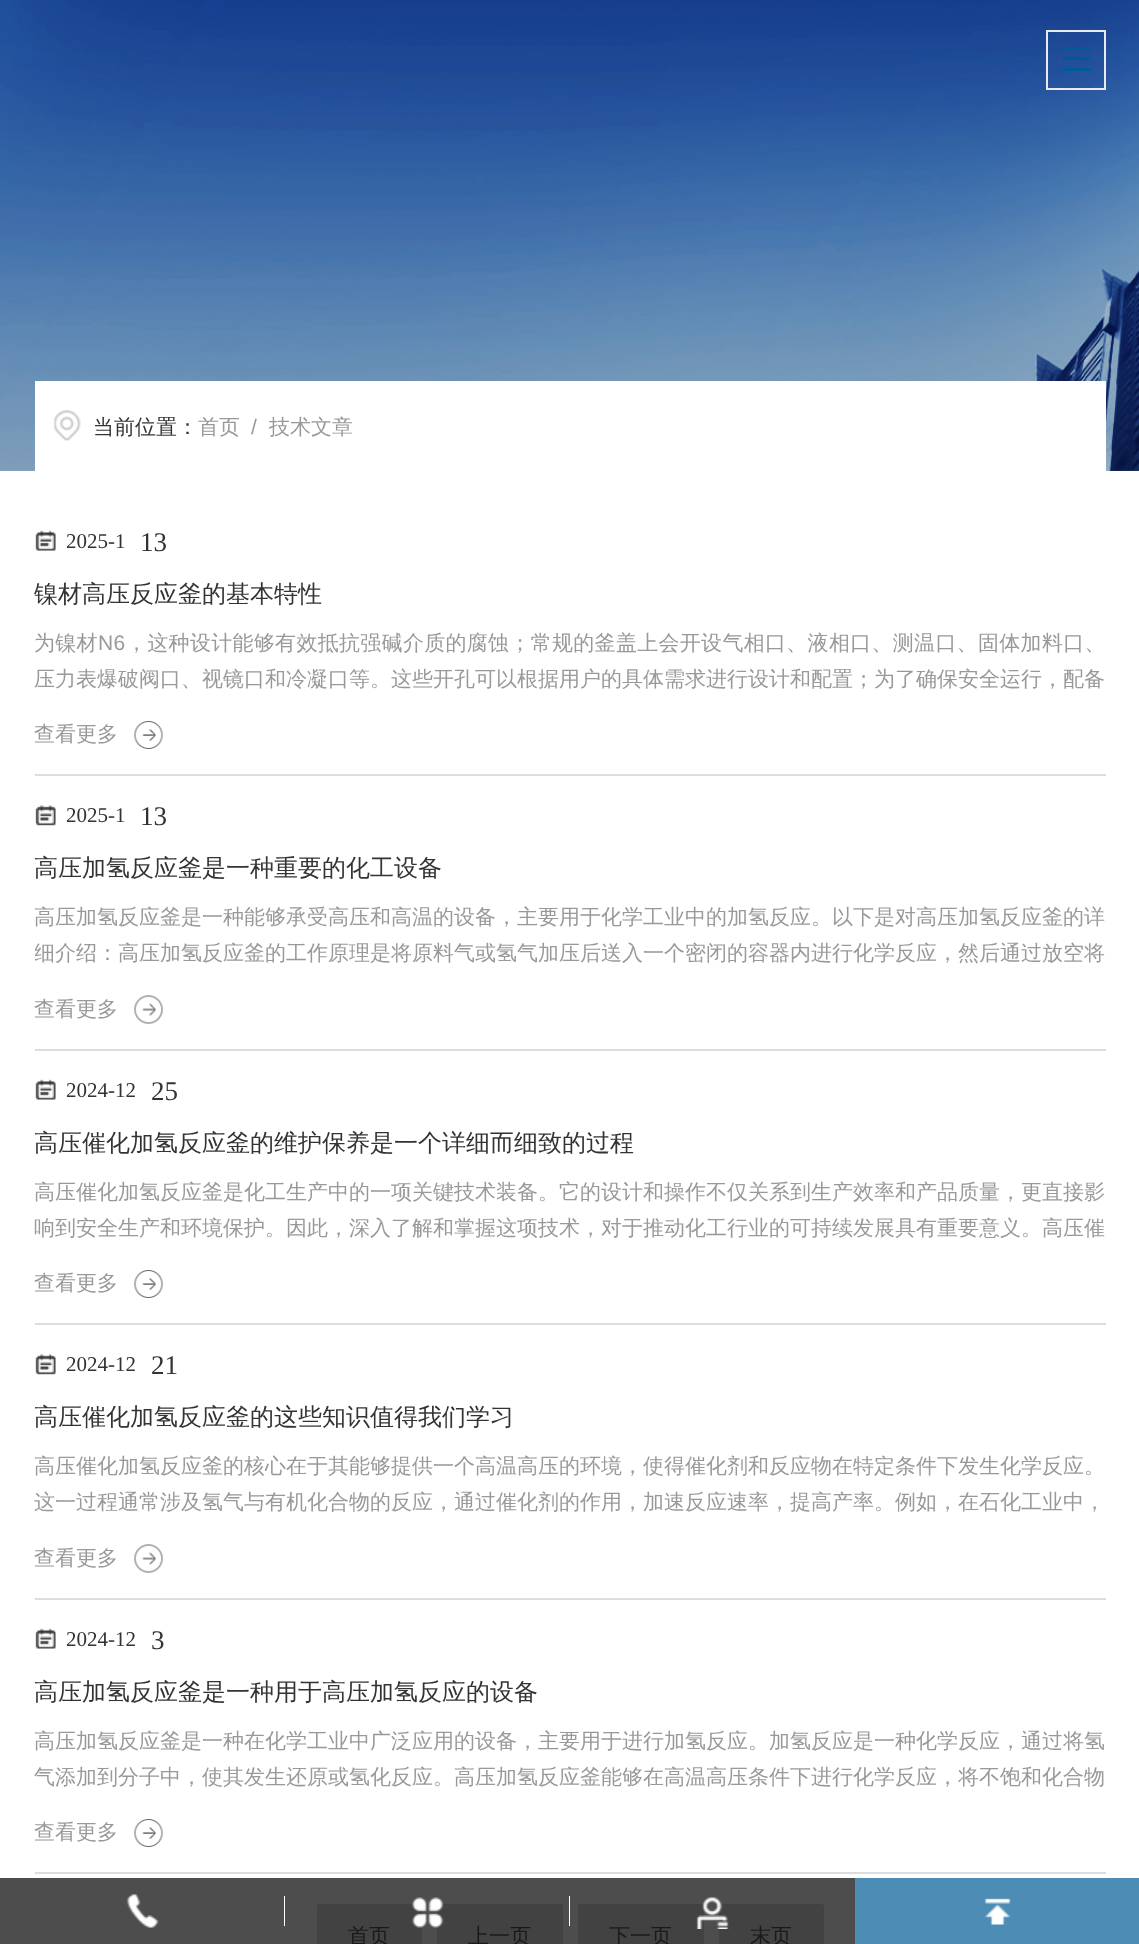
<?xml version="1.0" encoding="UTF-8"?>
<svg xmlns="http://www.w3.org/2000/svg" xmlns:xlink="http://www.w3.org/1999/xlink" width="1139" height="1944">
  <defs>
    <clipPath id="clip1"><rect x="35" y="899" width="1071" height="72" /></clipPath>
  </defs>
  <rect width="100%" height="100%" fill="#ffffff" />
  <rect y="1878" width="855" height="66" fill="#4d4d4d" />
  <image x="0" y="0" width="1139" height="471" xlink:href="image1.png" />
  <rect x="1047" y="31" width="58" height="58" fill="none" stroke="#eaeaea" stroke-width="2" />
  <rect x="1062" y="47" width="29" height="3" fill="#005b95" />
  <rect x="1062" y="57" width="29" height="3" fill="#005b95" />
  <rect x="1062" y="68" width="29" height="3" fill="#005b95" />
  <rect x="35" y="381" width="1071" height="90" fill="#ffffff" />
  <image x="54" y="410" width="27" height="31" xlink:href="image2.png" />
  <rect x="35" y="774" width="1071" height="2" fill="#dddddd" />
  <image x="35" y="530" width="21" height="21" xlink:href="image3.png" />
  <image x="134" y="721" width="29" height="28" xlink:href="image4.png" />
  <rect x="35" y="1049" width="1071" height="2" fill="#dddddd" />
  <image x="35" y="805" width="21" height="21" xlink:href="image5.png" />
  <image x="134" y="995" width="29" height="29" xlink:href="image6.png" />
  <rect x="35" y="1323" width="1071" height="2" fill="#dddddd" />
  <image x="35" y="1079" width="21" height="21" xlink:href="image3.png" />
  <image x="134" y="1270" width="29" height="28" xlink:href="image4.png" />
  <rect x="35" y="1598" width="1071" height="2" fill="#dddddd" />
  <image x="35" y="1354" width="21" height="21" xlink:href="image5.png" />
  <image x="134" y="1544" width="29" height="29" xlink:href="image6.png" />
  <rect x="35" y="1872" width="1071" height="2" fill="#dddddd" />
  <image x="35" y="1628" width="21" height="21" xlink:href="image3.png" />
  <image x="134" y="1819" width="29" height="28" xlink:href="image4.png" />
  <rect x="318" y="1905" width="103" height="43" rx="2" fill="#424242" stroke="#424242" stroke-width="2" />
  <rect x="438" y="1905" width="124" height="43" rx="2" fill="#424242" stroke="#424242" stroke-width="2" />
  <rect x="579" y="1905" width="124" height="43" rx="2" fill="#424242" stroke="#424242" stroke-width="2" />
  <rect x="720" y="1905" width="103" height="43" rx="2" fill="#424242" stroke="#424242" stroke-width="2" />
  <image x="126" y="1894" width="33" height="34" xlink:href="image7.png" />
  <rect x="284" y="1896" width="1" height="30" fill="#ffffff" />
  <image x="411" y="1897" width="33" height="31" xlink:href="image8.png" />
  <rect x="569" y="1896" width="1" height="30" fill="#ffffff" />
  <image x="696" y="1897" width="33" height="32" xlink:href="image9.png" />
  <rect x="855" y="1878" width="284" height="66" fill="#4d8cb5" />
  <image x="984" y="1898" width="27" height="27" xlink:href="image10.png" />
  <text x="93" y="434" style="font-family: WenQuanYi Zen Hei; font-size: 21px; font-weight: 500; fill: #333333">当前位置：</text>
  <text x="198" y="434" style="font-family: WenQuanYi Zen Hei; font-size: 21px; font-weight: 500; fill: #999999">首页</text>
  <text x="251" y="434" style="font-family: Liberation Sans; font-size: 21px; fill: #999999">/</text>
  <text x="269" y="434" style="font-family: WenQuanYi Zen Hei; font-size: 21px; font-weight: 500; fill: #999999">技术文章</text>
  <text x="66" y="548" style="font-family: Liberation Serif; font-size: 21px; fill: #333333">2025-1</text>
  <text x="140" y="551" style="font-family: Liberation Serif; font-size: 27px; fill: #333333">13</text>
  <text x="34" y="602" style="font-family: WenQuanYi Zen Hei; font-size: 24px; font-weight: 500; fill: #333333">镍材高压反应釜的基本特性</text>
  <text x="34" y="650" style="font-family: WenQuanYi Zen Hei; font-size: 21px; font-weight: 500; letter-spacing: 0.3px; fill: #999999">为镍材</text>
  <text x="98" y="650" style="font-family: Liberation Sans; font-size: 21px; letter-spacing: 0.3px; fill: #999999">N6</text>
  <text x="126" y="650" style="font-family: WenQuanYi Zen Hei; font-size: 21px; font-weight: 500; letter-spacing: 0.3px; fill: #999999">，这种设计能够有效抵抗强碱介质的腐蚀；常规的釜盖上会开设气相口、液相口、测温口、固体加料口、</text>
  <text x="34" y="686" style="font-family: WenQuanYi Zen Hei; font-size: 21px; font-weight: 500; fill: #999999">压力表爆破阀口、视镜口和冷凝口等。这些开孔可以根据用户的具体需求进行设计和配置；为了确保安全运行，配备</text>
  <text x="34" y="741" style="font-family: WenQuanYi Zen Hei; font-size: 21px; font-weight: 500; fill: #999999">查看更多</text>
  <text x="66" y="822" style="font-family: Liberation Serif; font-size: 21px; fill: #333333">2025-1</text>
  <text x="140" y="825" style="font-family: Liberation Serif; font-size: 27px; fill: #333333">13</text>
  <text x="34" y="876" style="font-family: WenQuanYi Zen Hei; font-size: 24px; font-weight: 500; fill: #333333">高压加氢反应釜是一种重要的化工设备</text>
  <text x="34" y="924" style="font-family: WenQuanYi Zen Hei; font-size: 21px; font-weight: 500; fill: #999999">高压加氢反应釜是一种能够承受高压和高温的设备，主要用于化学工业中的加氢反应。以下是对高压加氢反应釜的详</text>
  <g clip-path="url(#clip1)">
    <text x="34" y="960" style="font-family: WenQuanYi Zen Hei; font-size: 21px; font-weight: 500; fill: #999999">细介绍：高压加氢反应釜的工作原理是将原料气或氢气加压后送入一个密闭的容器内进行化学反应，然后通过放空将</text>
  </g>
  <text x="34" y="1016" style="font-family: WenQuanYi Zen Hei; font-size: 21px; font-weight: 500; fill: #999999">查看更多</text>
  <text x="66" y="1097" style="font-family: Liberation Serif; font-size: 21px; fill: #333333">2024-12</text>
  <text x="151" y="1100" style="font-family: Liberation Serif; font-size: 27px; fill: #333333">25</text>
  <text x="34" y="1151" style="font-family: WenQuanYi Zen Hei; font-size: 24px; font-weight: 500; fill: #333333">高压催化加氢反应釜的维护保养是一个详细而细致的过程</text>
  <text x="34" y="1199" style="font-family: WenQuanYi Zen Hei; font-size: 21px; font-weight: 500; fill: #999999">高压催化加氢反应釜是化工生产中的一项关键技术装备。它的设计和操作不仅关系到生产效率和产品质量，更直接影</text>
  <text x="34" y="1235" style="font-family: WenQuanYi Zen Hei; font-size: 21px; font-weight: 500; fill: #999999">响到安全生产和环境保护。因此，深入了解和掌握这项技术，对于推动化工行业的可持续发展具有重要意义。高压催</text>
  <text x="34" y="1290" style="font-family: WenQuanYi Zen Hei; font-size: 21px; font-weight: 500; fill: #999999">查看更多</text>
  <text x="66" y="1371" style="font-family: Liberation Serif; font-size: 21px; fill: #333333">2024-12</text>
  <text x="151" y="1374" style="font-family: Liberation Serif; font-size: 27px; fill: #333333">21</text>
  <text x="34" y="1425" style="font-family: WenQuanYi Zen Hei; font-size: 24px; font-weight: 500; fill: #333333">高压催化加氢反应釜的这些知识值得我们学习</text>
  <text x="34" y="1473" style="font-family: WenQuanYi Zen Hei; font-size: 21px; font-weight: 500; fill: #999999">高压催化加氢反应釜的核心在于其能够提供一个高温高压的环境，使得催化剂和反应物在特定条件下发生化学反应。</text>
  <text x="34" y="1509" style="font-family: WenQuanYi Zen Hei; font-size: 21px; font-weight: 500; fill: #999999">这一过程通常涉及氢气与有机化合物的反应，通过催化剂的作用，加速反应速率，提高产率。例如，在石化工业中，</text>
  <text x="34" y="1565" style="font-family: WenQuanYi Zen Hei; font-size: 21px; font-weight: 500; fill: #999999">查看更多</text>
  <text x="66" y="1646" style="font-family: Liberation Serif; font-size: 21px; fill: #333333">2024-12</text>
  <text x="151" y="1649" style="font-family: Liberation Serif; font-size: 27px; fill: #333333">3</text>
  <text x="34" y="1700" style="font-family: WenQuanYi Zen Hei; font-size: 24px; font-weight: 500; fill: #333333">高压加氢反应釜是一种用于高压加氢反应的设备</text>
  <text x="34" y="1748" style="font-family: WenQuanYi Zen Hei; font-size: 21px; font-weight: 500; fill: #999999">高压加氢反应釜是一种在化学工业中广泛应用的设备，主要用于进行加氢反应。加氢反应是一种化学反应，通过将氢</text>
  <text x="34" y="1784" style="font-family: WenQuanYi Zen Hei; font-size: 21px; font-weight: 500; fill: #999999">气添加到分子中，使其发生还原或氢化反应。高压加氢反应釜能够在高温高压条件下进行化学反应，将不饱和化合物</text>
  <text x="34" y="1839" style="font-family: WenQuanYi Zen Hei; font-size: 21px; font-weight: 500; fill: #999999">查看更多</text>
  <text x="348" y="1943" style="font-family: WenQuanYi Zen Hei; font-size: 21px; font-weight: 500; fill: #1a1a1a">首页</text>
  <text x="468" y="1943" style="font-family: WenQuanYi Zen Hei; font-size: 21px; font-weight: 500; fill: #1a1a1a">上一页</text>
  <text x="609" y="1943" style="font-family: WenQuanYi Zen Hei; font-size: 21px; font-weight: 500; fill: #1a1a1a">下一页</text>
  <text x="750" y="1943" style="font-family: WenQuanYi Zen Hei; font-size: 21px; font-weight: 500; fill: #1a1a1a">末页</text>
</svg>
